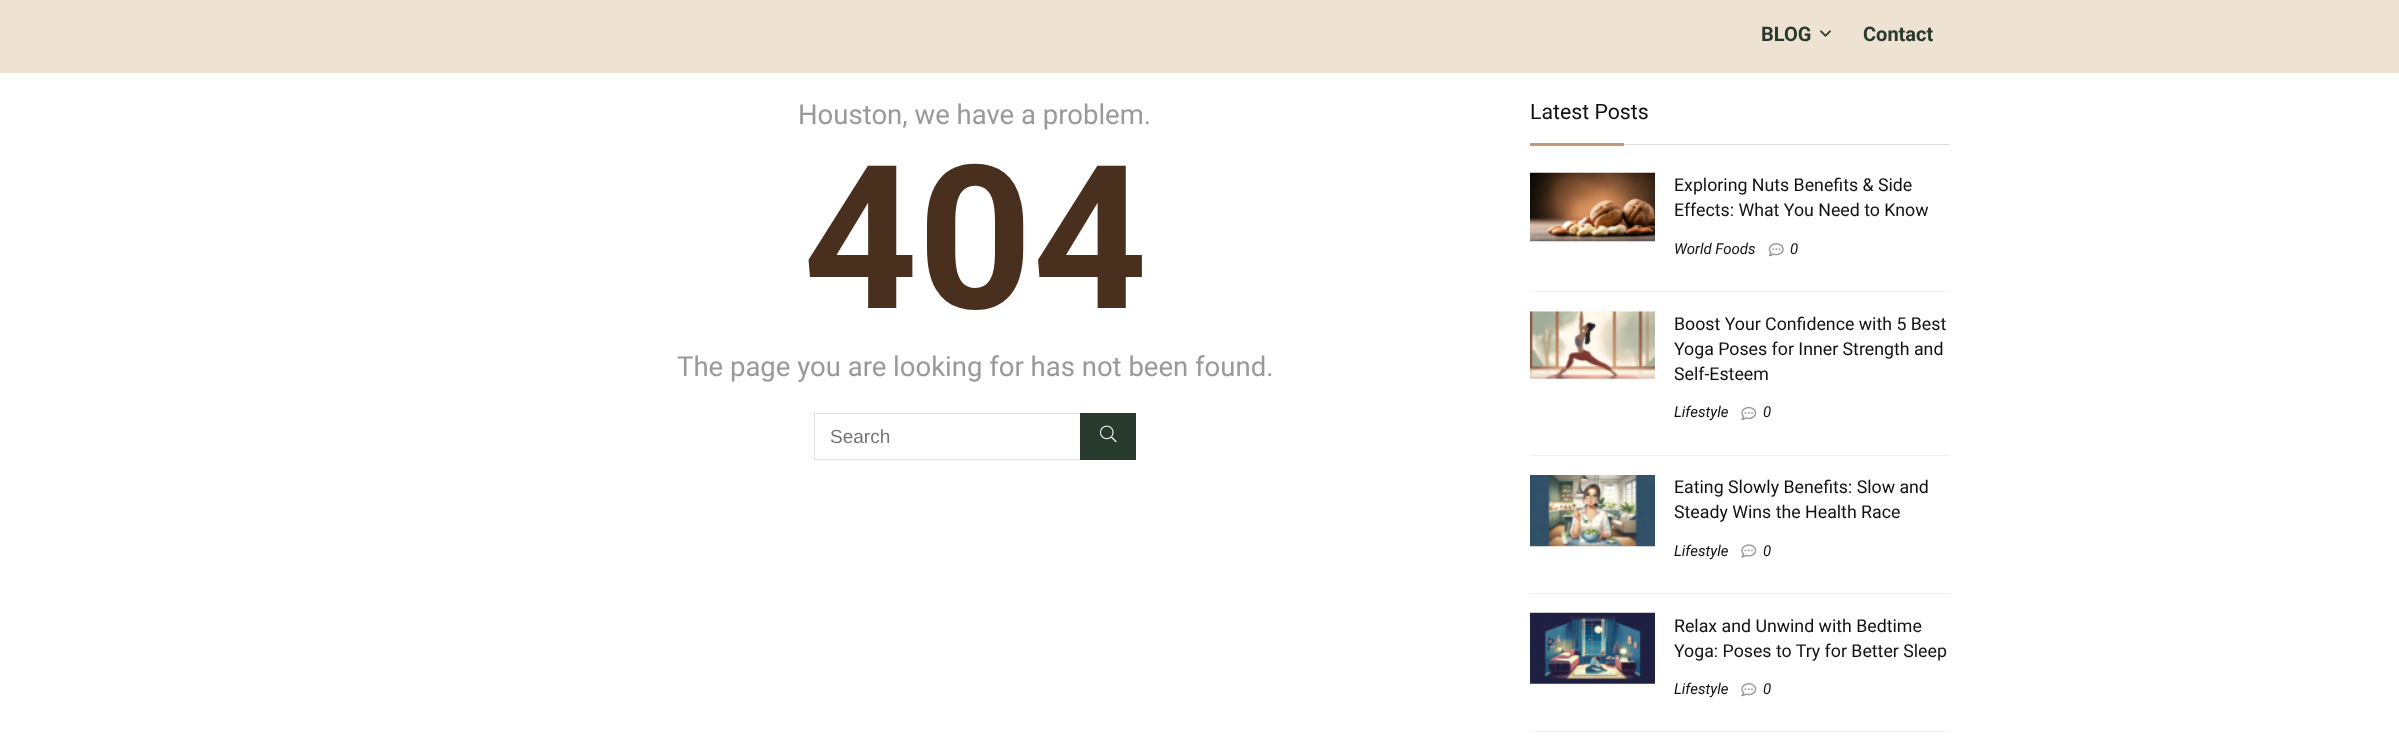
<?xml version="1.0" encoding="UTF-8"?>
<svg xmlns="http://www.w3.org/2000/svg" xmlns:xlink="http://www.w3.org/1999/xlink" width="2399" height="743">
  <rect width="100%" height="100%" fill="#ffffff" />
  <rect width="2399" height="73" fill="#eee2d3" />
  <image x="1820" y="30" width="11" height="7" xlink:href="image1.png" />
  <rect x="814.5" y="413.5" width="321" height="46" fill="none" stroke="#e1e1e1" />
  <rect x="1080" y="413" width="56" height="47" fill="#283a2d" />
  <image x="1100" y="425" width="17" height="18" xlink:href="image2.png" />
  <rect x="1624" y="144" width="326" height="1" fill="#dddddd" />
  <rect x="1530" y="143" width="94" height="3" fill="#c4987a" />
  <rect x="1530" y="291" width="420" height="1" fill="#f0f0f0" />
  <image x="1530" y="172" width="125" height="70" xlink:href="image3.png" />
  <image x="1768" y="243" width="16" height="14" xlink:href="image4.png" />
  <rect x="1530" y="455" width="420" height="1" fill="#f0f0f0" />
  <image x="1530" y="311" width="125" height="68" xlink:href="image5.png" />
  <image x="1741" y="406" width="16" height="14" xlink:href="image6.png" />
  <rect x="1530" y="593" width="420" height="1" fill="#f0f0f0" />
  <image x="1530" y="475" width="125" height="72" xlink:href="image7.png" />
  <image x="1741" y="544" width="16" height="14" xlink:href="image8.png" />
  <rect x="1530" y="731" width="420" height="1" fill="#f0f0f0" />
  <image x="1530" y="612" width="125" height="72" xlink:href="image9.png" />
  <image x="1741" y="683" width="16" height="14" xlink:href="image10.png" />
  <text x="1761" y="41" style="font-family: Roboto; font-size: 20px; font-weight: bold; fill: #283a2d">BLOG</text>
  <text x="1863" y="41" style="font-family: Roboto; font-size: 20px; font-weight: bold; fill: #283a2d">Contact</text>
  <text x="798" y="124" style="font-family: Roboto; font-size: 27.5px; fill: #999999">Houston, we have a problem.</text>
  <text x="803" y="308" style="font-family: Roboto; font-size: 200px; font-weight: bold; fill: #492f1e">404</text>
  <text x="677" y="376" style="font-family: Roboto; font-size: 27.5px; fill: #999999">The page you are looking for has not been found.</text>
  <text x="830" y="443" style="font-family: Liberation Sans; font-size: 19px; fill: #757575">Search</text>
  <text x="1530" y="119" style="font-family: Roboto; font-size: 21.25px; fill: #111111">Latest Posts</text>
  <text x="1674" y="191" style="font-family: Roboto; font-size: 17.75px; fill: #111111">Exploring Nuts Benefits &amp; Side</text>
  <text x="1674" y="216" style="font-family: Roboto; font-size: 17.75px; fill: #111111">Effects: What You Need to Know</text>
  <text x="1674" y="254" style="font-family: Roboto; font-size: 15px; font-style: italic; fill: #111111">World Foods</text>
  <text x="1790" y="254" style="font-family: Roboto; font-size: 15px; font-style: italic; fill: #111111">0</text>
  <text x="1674" y="330" style="font-family: Roboto; font-size: 17.75px; fill: #111111">Boost Your Confidence with 5 Best</text>
  <text x="1674" y="355" style="font-family: Roboto; font-size: 17.75px; fill: #111111">Yoga Poses for Inner Strength and</text>
  <text x="1674" y="380" style="font-family: Roboto; font-size: 17.75px; fill: #111111">Self-Esteem</text>
  <text x="1674" y="417" style="font-family: Roboto; font-size: 15px; font-style: italic; fill: #111111">Lifestyle</text>
  <text x="1763" y="417" style="font-family: Roboto; font-size: 15px; font-style: italic; fill: #111111">0</text>
  <text x="1674" y="493" style="font-family: Roboto; font-size: 17.75px; fill: #111111">Eating Slowly Benefits: Slow and</text>
  <text x="1674" y="518" style="font-family: Roboto; font-size: 17.75px; fill: #111111">Steady Wins the Health Race</text>
  <text x="1674" y="556" style="font-family: Roboto; font-size: 15px; font-style: italic; fill: #111111">Lifestyle</text>
  <text x="1763" y="556" style="font-family: Roboto; font-size: 15px; font-style: italic; fill: #111111">0</text>
  <text x="1674" y="632" style="font-family: Roboto; font-size: 17.75px; fill: #111111">Relax and Unwind with Bedtime</text>
  <text x="1674" y="657" style="font-family: Roboto; font-size: 17.75px; fill: #111111">Yoga: Poses to Try for Better Sleep</text>
  <text x="1674" y="694" style="font-family: Roboto; font-size: 15px; font-style: italic; fill: #111111">Lifestyle</text>
  <text x="1763" y="694" style="font-family: Roboto; font-size: 15px; font-style: italic; fill: #111111">0</text>
</svg>
